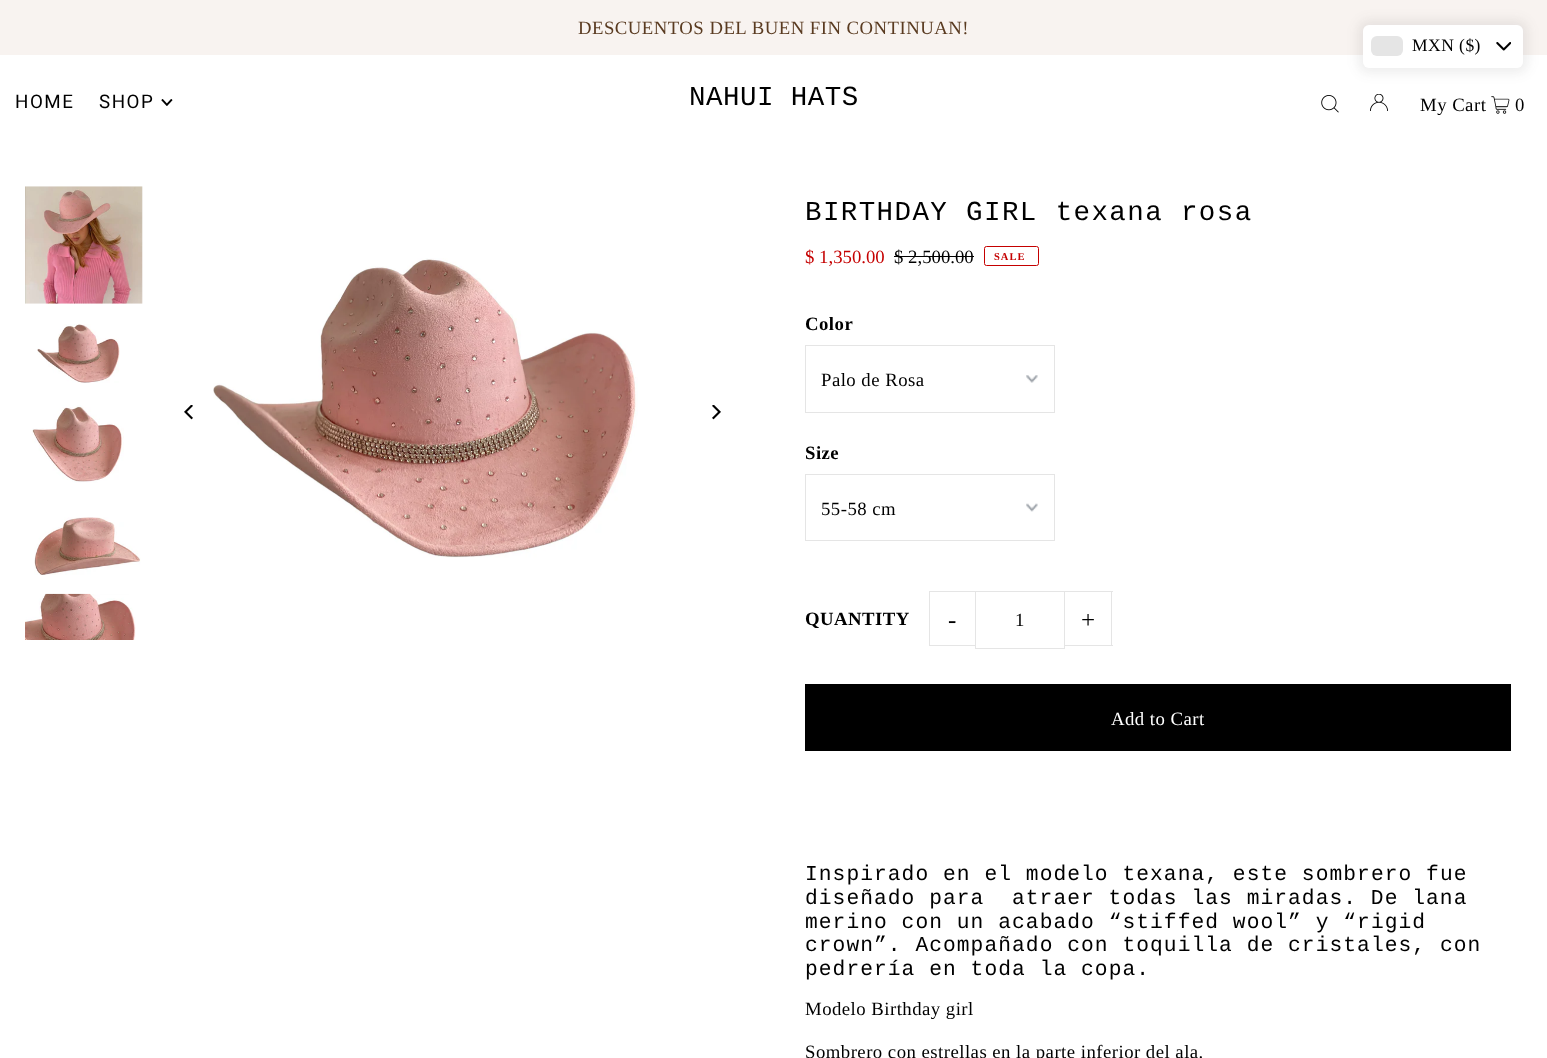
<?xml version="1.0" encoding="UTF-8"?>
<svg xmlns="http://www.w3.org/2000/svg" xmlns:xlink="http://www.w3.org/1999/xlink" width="1547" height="1058">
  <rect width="100%" height="100%" fill="#ffffff" />
  <rect width="1547" height="55" fill="#f8f3f0" />
  <image x="161" y="99" width="12" height="7" xlink:href="image1.png" />
  <image x="1321" y="95" width="18" height="18" xlink:href="image2.png" />
  <image x="1370" y="94" width="18" height="17" xlink:href="image3.png" />
  <image x="1491" y="96" width="19" height="18" xlink:href="image4.png" />
  <image x="25" y="186" width="118" height="118" xlink:href="image5.png" />
  <image x="37" y="324" width="83" height="59" xlink:href="image6.png" />
  <image x="32" y="405" width="92" height="78" xlink:href="image7.png" />
  <image x="34" y="517" width="107" height="58" xlink:href="image8.png" />
  <image x="25" y="593" width="111" height="47" xlink:href="image9.png" />
  <image x="213" y="258" width="425" height="300" xlink:href="image11.png" />
  <rect x="161" y="385" width="57" height="56" rx="28" fill="#ffffff" />
  <image x="184" y="405" width="9" height="15" xlink:href="image10.png" />
  <image x="712" y="405" width="9" height="15" xlink:href="image12.png" />
  <rect x="894" y="256" width="80" height="1" fill="#000000" />
  <rect x="984.5" y="246.5" width="54" height="19" rx="2" fill="none" stroke="#c50000" />
  <image x="1026" y="375" width="12" height="8" xlink:href="image13.png" />
  <rect x="805.5" y="345.5" width="249" height="67" fill="none" stroke="#e5e5e5" />
  <image x="1026" y="503" width="12" height="9" xlink:href="image14.png" />
  <rect x="805.5" y="474.5" width="249" height="66" fill="none" stroke="#e5e5e5" />
  <rect x="929" y="591" width="47" height="1" fill="#e5e5e5" />
  <rect x="929" y="645" width="47" height="1" fill="#e5e5e5" />
  <rect x="929" y="591" width="1" height="55" fill="#e5e5e5" />
  <rect x="975.5" y="591.5" width="89" height="57" fill="none" stroke="#e5e5e5" />
  <rect x="1065" y="591" width="48" height="1" fill="#e5e5e5" />
  <rect x="1111" y="591" width="1" height="55" fill="#e5e5e5" />
  <rect x="1065" y="645" width="48" height="1" fill="#e5e5e5" />
  <rect x="805" y="684" width="706" height="67" fill="#000000" />
  <rect x="1358" y="20" width="170" height="53" rx="11" fill="#3c3c3c" fill-opacity="0.09" filter="blur(6px)" />
  <rect x="1363" y="25" width="160" height="43" rx="6" fill="#ffffff" />
  <rect x="1371" y="36" width="32" height="20" rx="6" fill="#e5e5e5" />
  <image x="1496" y="42" width="15" height="9" xlink:href="image15.png" />
  <text x="578" y="34" style="font-family: Liberation Serif; font-size: 18.75px; letter-spacing: 0.47px; fill: #5a3b21">DESCUENTOS DEL BUEN FIN CONTINUAN!</text>
  <text x="15" y="108" style="font-family: Roboto; font-size: 18.75px; letter-spacing: 1.5px; fill: #000000">HOME</text>
  <text x="99" y="108" style="font-family: Roboto; font-size: 18.75px; letter-spacing: 1.5px; fill: #000000">SHOP</text>
  <text x="689" y="105" style="font-family: Liberation Mono; font-size: 27.5px; letter-spacing: 0.47px; fill: #000000">NAHUI HATS</text>
  <text x="1420" y="111" style="font-family: Liberation Serif; font-size: 18.75px; letter-spacing: 0.47px; fill: #000000">My Cart</text>
  <text x="1515" y="111" style="font-family: Liberation Serif; font-size: 18.75px; letter-spacing: 0.47px; fill: #000000">0</text>
  <text x="805" y="220" style="font-family: Liberation Mono; font-size: 27.5px; letter-spacing: 1.4px; fill: #000000">BIRTHDAY GIRL texana rosa</text>
  <text x="805" y="263" style="font-family: Liberation Serif; font-size: 18.75px; fill: #c50000">$ 1,350.00</text>
  <text x="894" y="263" style="font-family: Liberation Serif; font-size: 18.75px; fill: #000000">$ 2,500.00</text>
  <text x="994" y="260" style="font-family: Liberation Serif; font-size: 10.5px; font-weight: bold; letter-spacing: 1px; fill: #c50000">SALE</text>
  <text x="805" y="330" style="font-family: Liberation Serif; font-size: 18.75px; font-weight: bold; letter-spacing: 0.47px; fill: #000000">Color</text>
  <text x="821" y="386" style="font-family: Liberation Serif; font-size: 18.75px; letter-spacing: 0.47px; fill: #000000">Palo de Rosa</text>
  <text x="805" y="459" style="font-family: Liberation Serif; font-size: 18.75px; font-weight: bold; letter-spacing: 0.47px; fill: #000000">Size</text>
  <text x="821" y="515" style="font-family: Liberation Serif; font-size: 18.75px; letter-spacing: 0.47px; fill: #000000">55-58 cm</text>
  <text x="805" y="625" style="font-family: Liberation Serif; font-size: 18.75px; font-weight: bold; letter-spacing: 0.47px; fill: #000000">QUANTITY</text>
  <text x="948" y="628" style="font-family: Liberation Serif; font-size: 25px; letter-spacing: 1px; fill: #000000">-</text>
  <text x="1015" y="626" style="font-family: Liberation Serif; font-size: 18.75px; letter-spacing: 0.47px; fill: #000000">1</text>
  <text x="1081" y="628" style="font-family: Liberation Serif; font-size: 25px; letter-spacing: 1px; fill: #000000">+</text>
  <text x="1111" y="725" style="font-family: Liberation Serif; font-size: 18.75px; letter-spacing: 0.47px; fill: #ffffff">Add to Cart</text>
  <text x="805" y="880" style="font-family: Liberation Mono; font-size: 21.25px; letter-spacing: 1.05px; fill: #000000">Inspirado en el modelo texana, este sombrero fue</text>
  <text x="805" y="904" style="font-family: Liberation Mono; font-size: 21.25px; letter-spacing: 1.05px; fill: #000000">diseñado para</text>
  <text x="1012" y="904" style="font-family: Liberation Mono; font-size: 21.25px; letter-spacing: 1.05px; fill: #000000">atraer todas las miradas. De lana</text>
  <text x="805" y="928" style="font-family: Liberation Mono; font-size: 21.25px; letter-spacing: 1.05px; fill: #000000">merino con un acabado “stiffed wool” y “rigid</text>
  <text x="805" y="951" style="font-family: Liberation Mono; font-size: 21.25px; letter-spacing: 1.05px; fill: #000000">crown”. Acompañado con toquilla de cristales, con</text>
  <text x="805" y="975" style="font-family: Liberation Mono; font-size: 21.25px; letter-spacing: 1.05px; fill: #000000">pedrería en toda la copa.</text>
  <text x="805" y="1015" style="font-family: Liberation Serif; font-size: 18.75px; letter-spacing: 0.47px; fill: #000000">Modelo Birthday girl</text>
  <text x="805" y="1058" style="font-family: Liberation Serif; font-size: 18.75px; letter-spacing: 0.47px; fill: #000000">Sombrero con estrellas en la parte inferior del ala.</text>
  <text x="1412" y="51" style="font-family: Liberation Serif; font-size: 17.5px; letter-spacing: 0.47px; fill: #000000">MXN ($)</text>
</svg>
